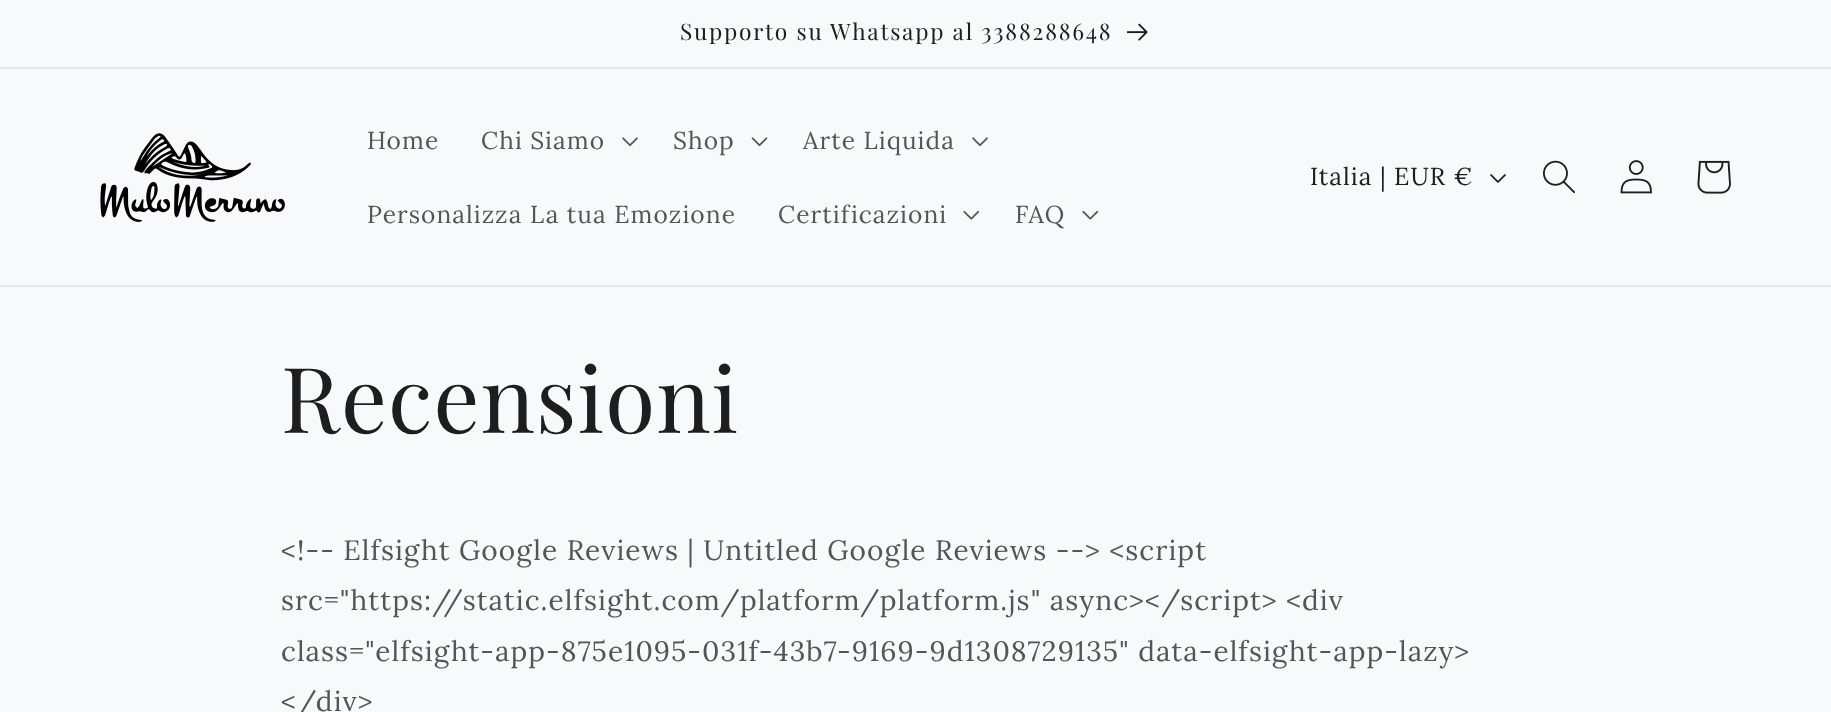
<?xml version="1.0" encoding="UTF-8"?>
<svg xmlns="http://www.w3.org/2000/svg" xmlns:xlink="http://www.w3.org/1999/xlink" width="1831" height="712">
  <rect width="100%" height="100%" fill="#f8f9fa" />
  <rect y="67" width="1831" height="2" fill="#e7e7e8" />
  <image x="1127" y="23" width="21" height="18" xlink:href="image1.png" />
  <rect y="285" width="1831" height="2" fill="#e7e7e8" />
  <image x="100" y="133" width="185" height="89" xlink:href="image2.png" />
  <image x="622" y="137" width="16" height="9" xlink:href="image3.png" />
  <image x="751" y="137" width="17" height="10" xlink:href="image4.png" />
  <image x="972" y="137" width="16" height="9" xlink:href="image3.png" />
  <image x="963" y="210" width="17" height="10" xlink:href="image5.png" />
  <image x="1082" y="210" width="17" height="10" xlink:href="image5.png" />
  <image x="1490" y="174" width="16" height="9" xlink:href="image6.png" />
  <image x="1543" y="160" width="32" height="34" xlink:href="image7.png" />
  <image x="1620" y="160" width="32" height="34" xlink:href="image8.png" />
  <image x="1697" y="160" width="34" height="34" xlink:href="image9.png" />
  <text x="680" y="40" style="font-family: Playfair Display; font-size: 22.75px; letter-spacing: 1.75px; fill: #1e1e1e">Supporto su Whatsapp al 3388288648</text>
  <text x="367" y="149" style="font-family: Lora; font-size: 24.5px; letter-spacing: 1.05px; fill: #555555">Home</text>
  <text x="481" y="149" style="font-family: Lora; font-size: 24.5px; letter-spacing: 1.05px; fill: #555555">Chi Siamo</text>
  <text x="673" y="149" style="font-family: Lora; font-size: 24.5px; letter-spacing: 1.05px; fill: #555555">Shop</text>
  <text x="803" y="149" style="font-family: Lora; font-size: 24.5px; letter-spacing: 1.05px; fill: #555555">Arte Liquida</text>
  <text x="367" y="223" style="font-family: Lora; font-size: 24.5px; letter-spacing: 1.05px; fill: #555555">Personalizza La tua Emozione</text>
  <text x="778" y="223" style="font-family: Lora; font-size: 24.5px; letter-spacing: 1.05px; fill: #555555">Certificazioni</text>
  <text x="1015" y="223" style="font-family: Lora; font-size: 24.5px; letter-spacing: 1.05px; fill: #555555">FAQ</text>
  <text x="1310" y="185" style="font-family: Lora; font-size: 24.5px; letter-spacing: 1.05px; fill: #1e1e1e">Italia | EUR €</text>
  <text x="281" y="433" style="font-family: Playfair Display; font-size: 91px; letter-spacing: 1.05px; fill: #1e1e1e">Recensioni</text>
  <text x="281" y="560" style="font-family: Lora; font-size: 28px; letter-spacing: 1.05px; fill: #555555">&lt;!-- Elfsight Google Reviews | Untitled Google Reviews --&gt; &lt;script</text>
  <text x="281" y="610" style="font-family: Lora; font-size: 28px; letter-spacing: 1.05px; fill: #555555">src="https://static.elfsight.com/platform/platform.js" async&gt;&lt;/script&gt; &lt;div</text>
  <text x="281" y="661" style="font-family: Lora; font-size: 28px; letter-spacing: 1.05px; fill: #555555">class="elfsight-app-875e1095-031f-43b7-9169-9d1308729135" data-elfsight-app-lazy&gt;</text>
  <text x="281" y="711" style="font-family: Lora; font-size: 28px; letter-spacing: 1.05px; fill: #555555">&lt;/div&gt;</text>
</svg>
